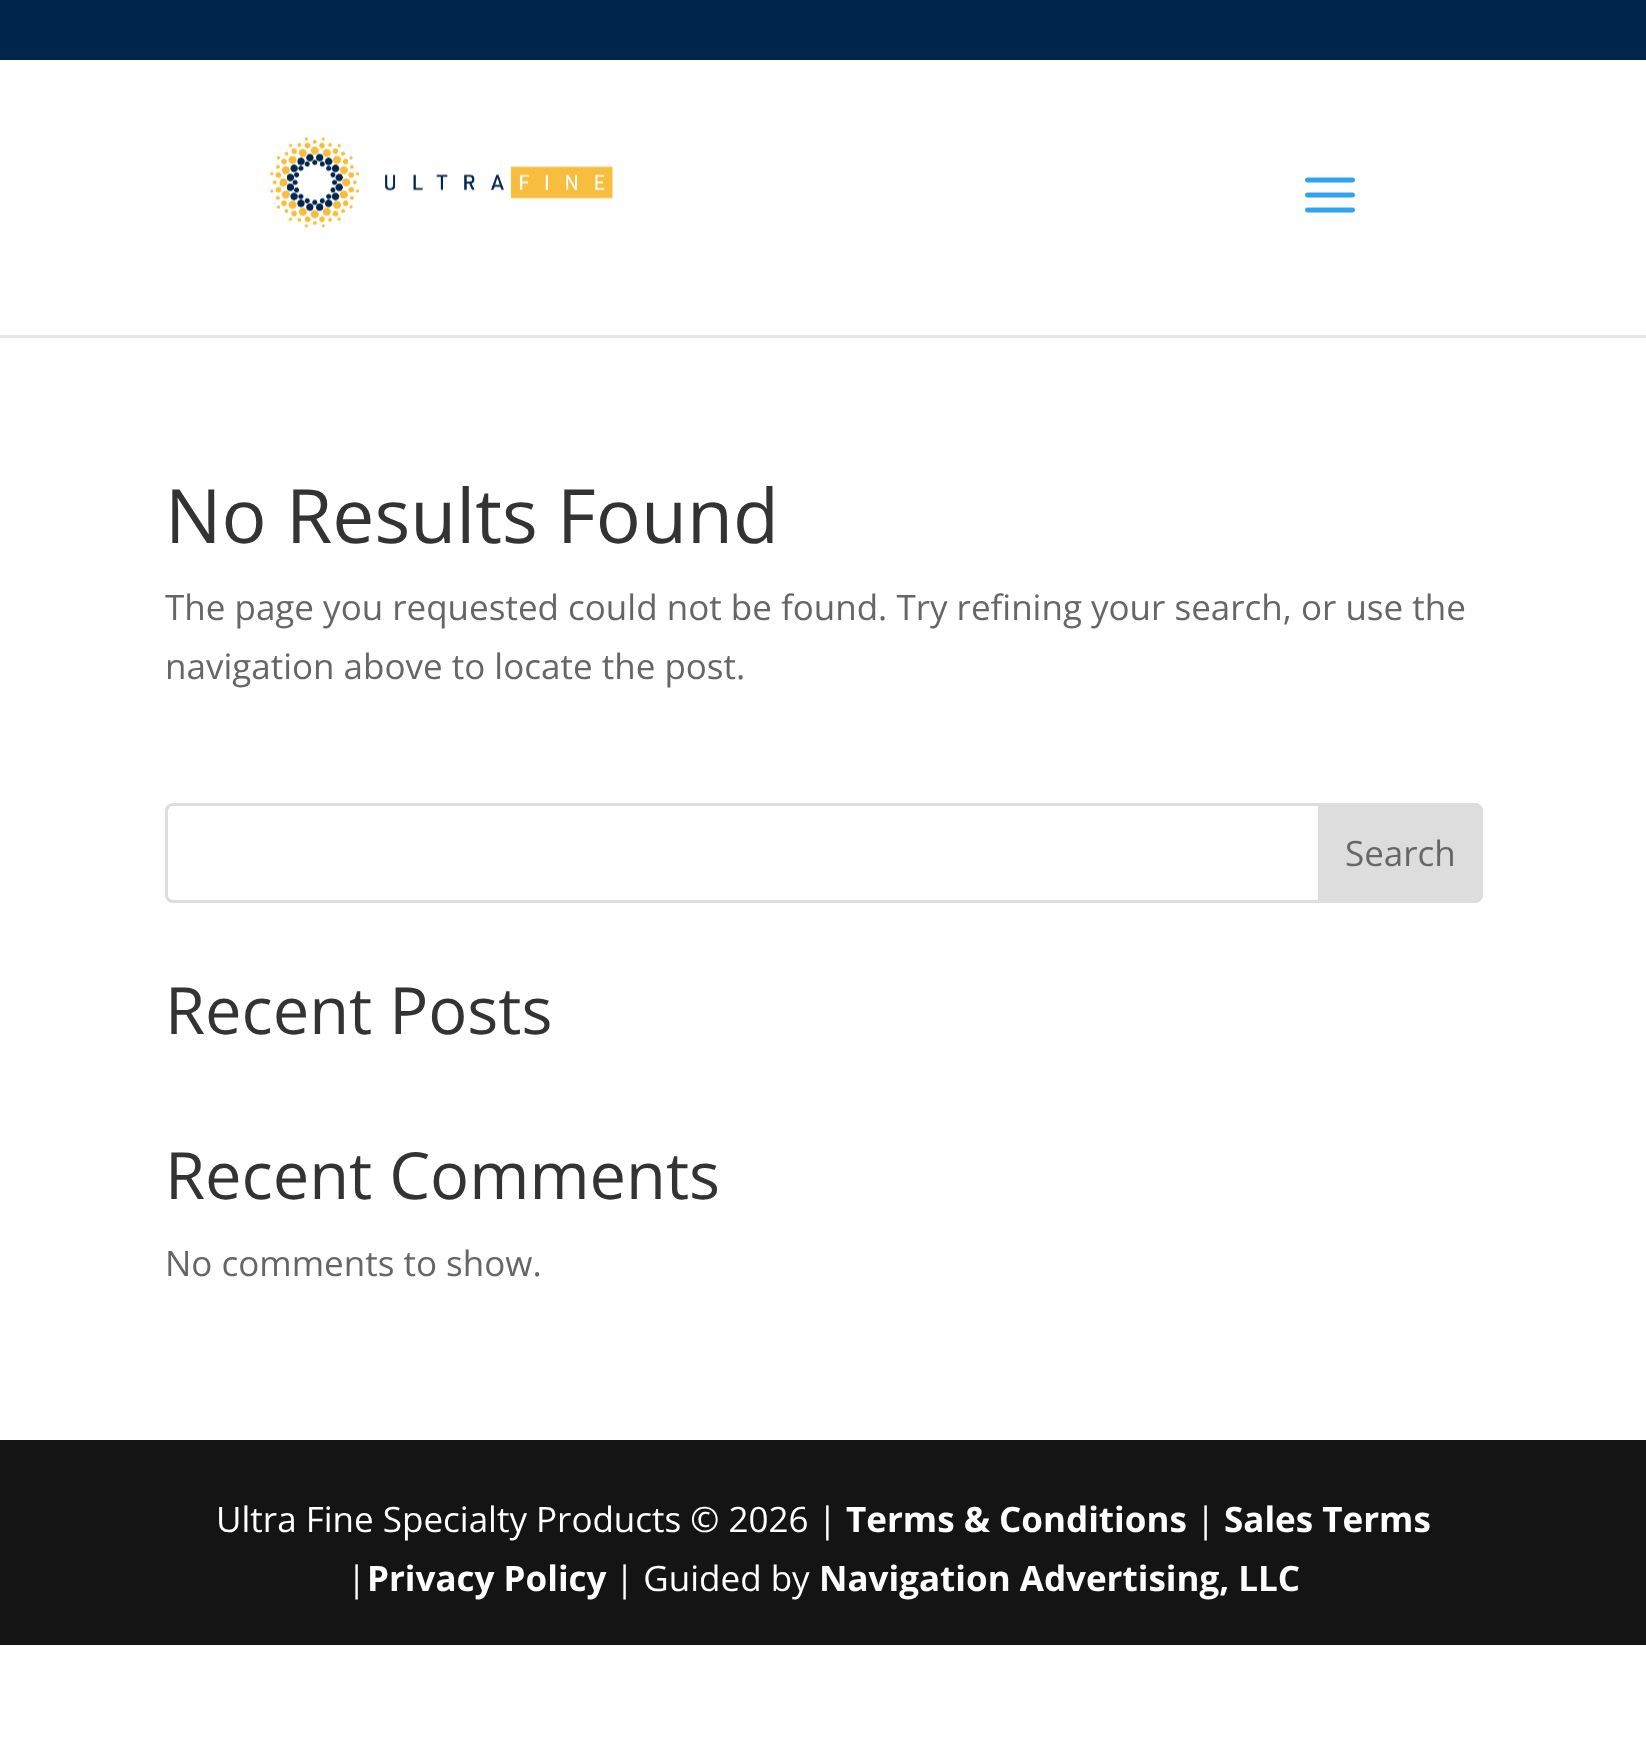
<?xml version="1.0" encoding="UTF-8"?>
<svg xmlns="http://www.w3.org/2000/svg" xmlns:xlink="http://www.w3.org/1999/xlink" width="1646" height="1761">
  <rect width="100%" height="100%" fill="#ffffff" />
  <rect width="1646" height="60" fill="#00254d" />
  <path d="M 0 335 v 3 h 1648 v -275 v 272 z" fill="#e6e6e6" />
  <image x="270" y="137" width="343" height="91" xlink:href="image1.png" />
  <image x="1305" y="177" width="50" height="36" xlink:href="image2.png" />
  <rect x="166.5" y="804.5" width="1315" height="97" rx="6.5" fill="none" stroke="#dddddd" stroke-width="3" />
  <path d="M 1319.5 804.5 h 155.5 c 3.5 0 6.5 3 6.5 6.5 v 84 c 0 3.5 -3 6.5 -6.5 6.5 h -155.5 z" fill="#dddddd" stroke="#dddddd" stroke-width="3" />
  <rect y="1440" width="1646" height="205" fill="#141414" />
  <text x="165" y="543" style="font-family: Open Sans; font-size: 75px; fill: #333333">No Results Found</text>
  <text x="165" y="620" style="font-family: Open Sans; font-size: 35px; fill: #666666">The page you requested could not be found. Try refining your search, or use the</text>
  <text x="165" y="679" style="font-family: Open Sans; font-size: 35px; fill: #666666">navigation above to locate the post.</text>
  <text x="1345" y="866" style="font-family: Open Sans; font-size: 35px; fill: #666666">Search</text>
  <text x="165" y="1034" style="font-family: Open Sans; font-size: 65px; fill: #333333">Recent Posts</text>
  <text x="165" y="1199" style="font-family: Open Sans; font-size: 65px; fill: #333333">Recent Comments</text>
  <text x="165" y="1276" style="font-family: Open Sans; font-size: 35px; fill: #666666">No comments to show.</text>
  <text x="216" y="1532" style="font-family: Open Sans; font-size: 35px; fill: #ffffff">Ultra Fine Specialty Products © 2026 |</text>
  <text x="846" y="1532" style="font-family: Open Sans; font-size: 35px; font-weight: bold; fill: #ffffff">Terms &amp; Conditions</text>
  <text x="1196" y="1532" style="font-family: Open Sans; font-size: 35px; fill: #ffffff">|</text>
  <text x="1224" y="1532" style="font-family: Open Sans; font-size: 35px; font-weight: bold; fill: #ffffff">Sales Terms</text>
  <text x="347" y="1591" style="font-family: Open Sans; font-size: 35px; fill: #ffffff">|</text>
  <text x="367" y="1591" style="font-family: Open Sans; font-size: 35px; font-weight: bold; fill: #ffffff">Privacy Policy</text>
  <text x="615" y="1591" style="font-family: Open Sans; font-size: 35px; fill: #ffffff">| Guided by</text>
  <text x="819" y="1591" style="font-family: Open Sans; font-size: 35px; font-weight: bold; fill: #ffffff">Navigation Advertising, LLC</text>
</svg>
